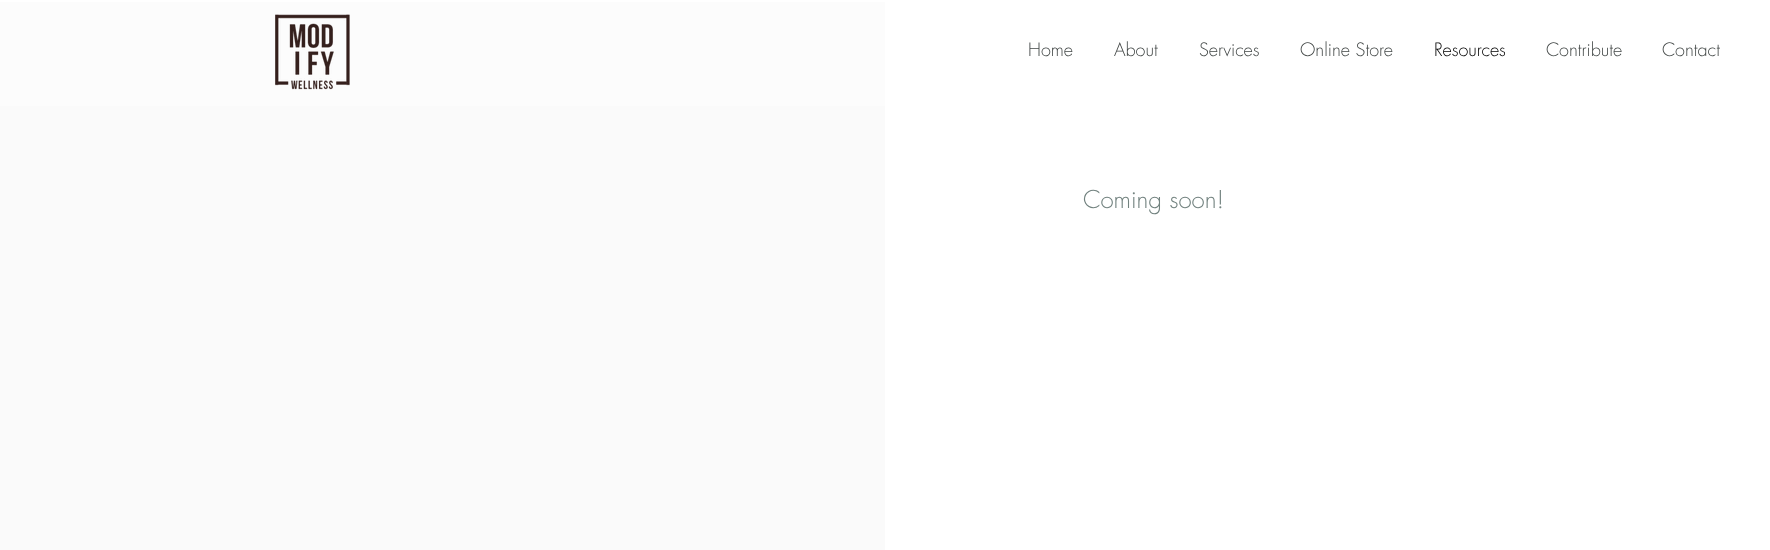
<?xml version="1.0" encoding="UTF-8"?>
<svg xmlns="http://www.w3.org/2000/svg" xmlns:xlink="http://www.w3.org/1999/xlink" width="1770" height="550">
  <rect width="100%" height="100%" fill="#ffffff" />
  <rect y="2" width="885" height="104" fill="#fcfcfc" />
  <image x="275" y="14" width="75" height="76" xlink:href="image1.png" />
  <rect y="106" width="885" height="444" fill="#fafafa" />
  <text x="1028" y="56" style="font-family: futura; font-size: 18px; font-weight: 300; fill: #424746">Home</text>
  <text x="1114" y="56" style="font-family: futura; font-size: 18px; font-weight: 300; fill: #424746">About</text>
  <text x="1199" y="56" style="font-family: futura; font-size: 18px; font-weight: 300; fill: #424746">Services</text>
  <text x="1300" y="56" style="font-family: futura; font-size: 18px; font-weight: 300; fill: #424746">Online Store</text>
  <text x="1434" y="56" style="font-family: futura; font-size: 18px; font-weight: 300; fill: #000000">Resources</text>
  <text x="1546" y="56" style="font-family: futura; font-size: 18px; font-weight: 300; fill: #424746">Contribute</text>
  <text x="1662" y="56" style="font-family: futura; font-size: 18px; font-weight: 300; fill: #424746">Contact</text>
  <text x="1083" y="208" style="font-family: futura; font-size: 24px; font-weight: 300; fill: #72827f">Coming soon!</text>
</svg>
